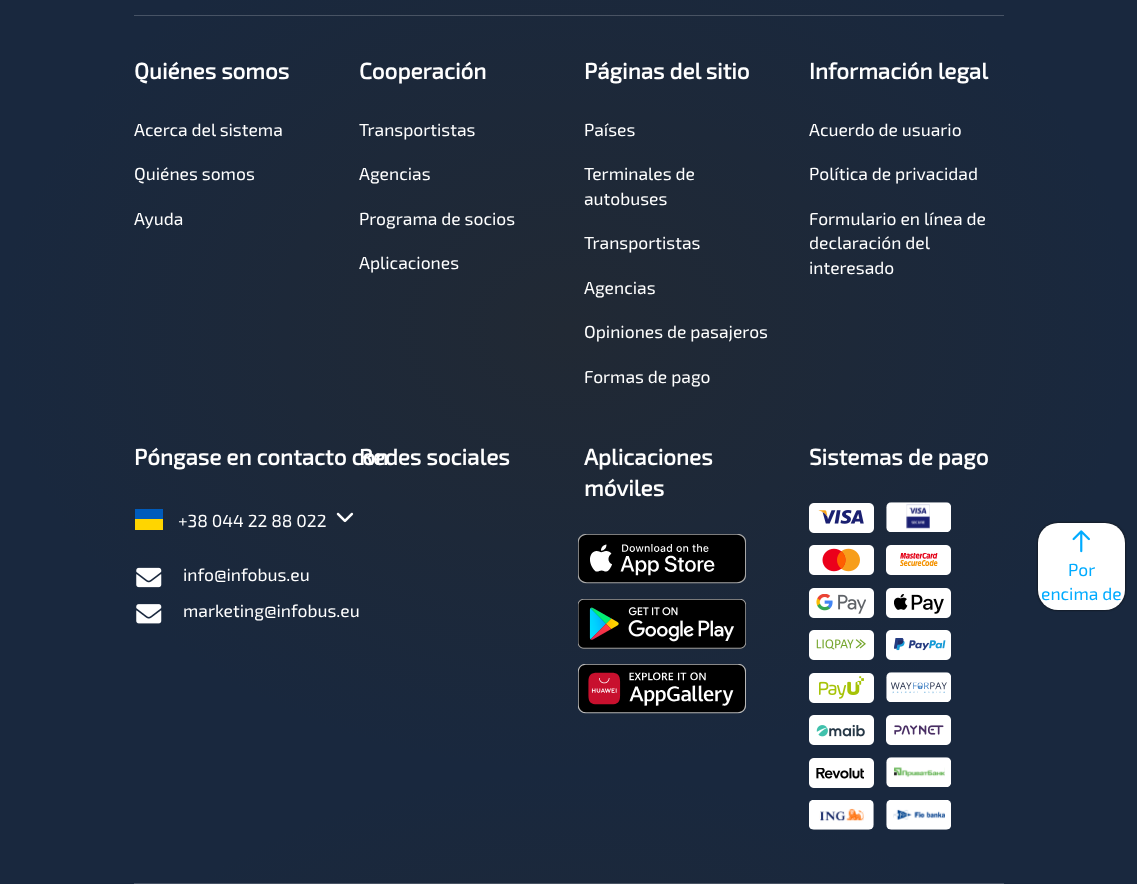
<?xml version="1.0" encoding="UTF-8"?>
<svg xmlns="http://www.w3.org/2000/svg" xmlns:xlink="http://www.w3.org/1999/xlink" width="1137" height="884">
  <defs>
    <radialGradient id="g1" gradientUnits="userSpaceOnUse" cx="0" cy="0" r="1" gradientTransform="matrix(569 0 0 443 569 329)"><stop offset="0" stop-color="#212934" /><stop offset="1" stop-color="#19283e" /></radialGradient>
    <radialGradient id="g2" gradientUnits="userSpaceOnUse" cx="0" cy="0" r="1" gradientTransform="matrix(569 0 0 443 569 329)"><stop offset="0" stop-color="#4d545d" /><stop offset="1" stop-color="#475365" /></radialGradient>
    <radialGradient id="g3" gradientUnits="userSpaceOnUse" cx="0" cy="0" r="1" gradientTransform="matrix(569 0 0 443 569 1214)"><stop offset="0" stop-color="#212934" /><stop offset="1" stop-color="#19283e" /></radialGradient>
    <radialGradient id="g4" gradientUnits="userSpaceOnUse" cx="0" cy="0" r="1" gradientTransform="matrix(569 0 0 443 569 1214)"><stop offset="0" stop-color="#4d545d" /><stop offset="1" stop-color="#475365" /></radialGradient>
  </defs>
  <rect width="100%" height="100%" fill="#ffffff" />
  <rect width="1137" height="771" fill="url(#g1)" />
  <rect x="134" y="15" width="870" height="1" fill="url(#g2)" />
  <rect y="771" width="1137" height="113" fill="url(#g3)" />
  <rect x="134" y="883" width="870" height="1" fill="url(#g4)" />
  <rect x="135" y="519" width="28" height="11" fill="#ffd500" />
  <rect x="135" y="509" width="28" height="10" fill="#005bbb" />
  <image x="336" y="512" width="18" height="11" xlink:href="image1.png" />
  <image x="136" y="567" width="26" height="21" xlink:href="image2.png" />
  <image x="136" y="604" width="26" height="20" xlink:href="image3.png" />
  <image x="578" y="534" width="168" height="50" xlink:href="image4.png" />
  <image x="578" y="599" width="168" height="50" xlink:href="image5.png" />
  <image x="578" y="664" width="168" height="50" xlink:href="image6.png" />
  <image x="809" y="503" width="65" height="30" xlink:href="image7.png" />
  <image x="886" y="502" width="65" height="30" xlink:href="image8.png" />
  <image x="809" y="545" width="65" height="30" xlink:href="image9.png" />
  <image x="886" y="545" width="65" height="30" xlink:href="image10.png" />
  <image x="809" y="588" width="65" height="30" xlink:href="image11.png" />
  <image x="886" y="588" width="65" height="30" xlink:href="image12.png" />
  <image x="809" y="630" width="65" height="30" xlink:href="image13.png" />
  <image x="886" y="630" width="65" height="30" xlink:href="image14.png" />
  <image x="809" y="673" width="65" height="30" xlink:href="image15.png" />
  <image x="886" y="672" width="65" height="30" xlink:href="image16.png" />
  <image x="809" y="715" width="65" height="30" xlink:href="image17.png" />
  <image x="886" y="715" width="65" height="30" xlink:href="image18.png" />
  <image x="809" y="758" width="65" height="30" xlink:href="image19.png" />
  <image x="886" y="757" width="65" height="30" xlink:href="image20.png" />
  <image x="809" y="800" width="65" height="30" xlink:href="image21.png" />
  <image x="886" y="800" width="65" height="30" xlink:href="image22.png" />
  <rect x="1038" y="523" width="87" height="87" rx="20" fill="#0c0c0c" filter="blur(1px)" />
  <rect x="1038" y="523" width="87" height="87" rx="20" fill="#ffffff" />
  <image x="1072" y="530" width="18" height="23" xlink:href="image23.png" />
  <text x="134" y="79" style="font-family: 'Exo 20'; font-size: 22.5px; font-weight: bold; fill: #ffffff">Quiénes somos</text>
  <text x="134" y="136" style="font-family: 'Exo 20'; font-size: 17.5px; fill: #ffffff">Acerca del sistema</text>
  <text x="134" y="180" style="font-family: 'Exo 20'; font-size: 17.5px; fill: #ffffff">Quiénes somos</text>
  <text x="134" y="225" style="font-family: 'Exo 20'; font-size: 17.5px; fill: #ffffff">Ayuda</text>
  <text x="359" y="79" style="font-family: 'Exo 20'; font-size: 22.5px; font-weight: bold; fill: #ffffff">Cooperación</text>
  <text x="359" y="136" style="font-family: 'Exo 20'; font-size: 17.5px; fill: #ffffff">Transportistas</text>
  <text x="359" y="180" style="font-family: 'Exo 20'; font-size: 17.5px; fill: #ffffff">Agencias</text>
  <text x="359" y="225" style="font-family: 'Exo 20'; font-size: 17.5px; fill: #ffffff">Programa de socios</text>
  <text x="359" y="269" style="font-family: 'Exo 20'; font-size: 17.5px; fill: #ffffff">Aplicaciones</text>
  <text x="584" y="79" style="font-family: 'Exo 20'; font-size: 22.5px; font-weight: bold; fill: #ffffff">Páginas del sitio</text>
  <text x="584" y="136" style="font-family: 'Exo 20'; font-size: 17.5px; fill: #ffffff">Países</text>
  <text x="584" y="180" style="font-family: 'Exo 20'; font-size: 17.5px; fill: #ffffff">Terminales de</text>
  <text x="584" y="205" style="font-family: 'Exo 20'; font-size: 17.5px; fill: #ffffff">autobuses</text>
  <text x="584" y="249" style="font-family: 'Exo 20'; font-size: 17.5px; fill: #ffffff">Transportistas</text>
  <text x="584" y="294" style="font-family: 'Exo 20'; font-size: 17.5px; fill: #ffffff">Agencias</text>
  <text x="584" y="338" style="font-family: 'Exo 20'; font-size: 17.5px; fill: #ffffff">Opiniones de pasajeros</text>
  <text x="584" y="383" style="font-family: 'Exo 20'; font-size: 17.5px; fill: #ffffff">Formas de pago</text>
  <text x="809" y="79" style="font-family: 'Exo 20'; font-size: 22.5px; font-weight: bold; fill: #ffffff">Información legal</text>
  <text x="809" y="136" style="font-family: 'Exo 20'; font-size: 17.5px; fill: #ffffff">Acuerdo de usuario</text>
  <text x="809" y="180" style="font-family: 'Exo 20'; font-size: 17.5px; fill: #ffffff">Política de privacidad</text>
  <text x="809" y="225" style="font-family: 'Exo 20'; font-size: 17.5px; fill: #ffffff">Formulario en línea de</text>
  <text x="809" y="249" style="font-family: 'Exo 20'; font-size: 17.5px; fill: #ffffff">declaración del</text>
  <text x="809" y="274" style="font-family: 'Exo 20'; font-size: 17.5px; fill: #ffffff">interesado</text>
  <text x="134" y="465" style="font-family: 'Exo 20'; font-size: 22.5px; font-weight: bold; fill: #ffffff">Póngase en contacto con</text>
  <text x="178" y="527" style="font-family: 'Exo 20'; font-size: 17.5px; fill: #ffffff">+38 044 22 88 022</text>
  <text x="183" y="581" style="font-family: 'Exo 20'; font-size: 17.5px; fill: #ffffff">info@infobus.eu</text>
  <text x="183" y="617" style="font-family: 'Exo 20'; font-size: 17.5px; fill: #ffffff">marketing@infobus.eu</text>
  <text x="359" y="465" style="font-family: 'Exo 20'; font-size: 22.5px; font-weight: bold; fill: #ffffff">Redes sociales</text>
  <text x="584" y="465" style="font-family: 'Exo 20'; font-size: 22.5px; font-weight: bold; fill: #ffffff">Aplicaciones</text>
  <text x="584" y="496" style="font-family: 'Exo 20'; font-size: 22.5px; font-weight: bold; fill: #ffffff">móviles</text>
  <text x="809" y="465" style="font-family: 'Exo 20'; font-size: 22.5px; font-weight: bold; fill: #ffffff">Sistemas de pago</text>
  <text x="1068" y="576" style="font-family: 'Exo 20'; font-size: 17.5px; fill: #00abff">Por</text>
  <text x="1041" y="600" style="font-family: 'Exo 20'; font-size: 17.5px; fill: #00abff">encima de</text>
</svg>
